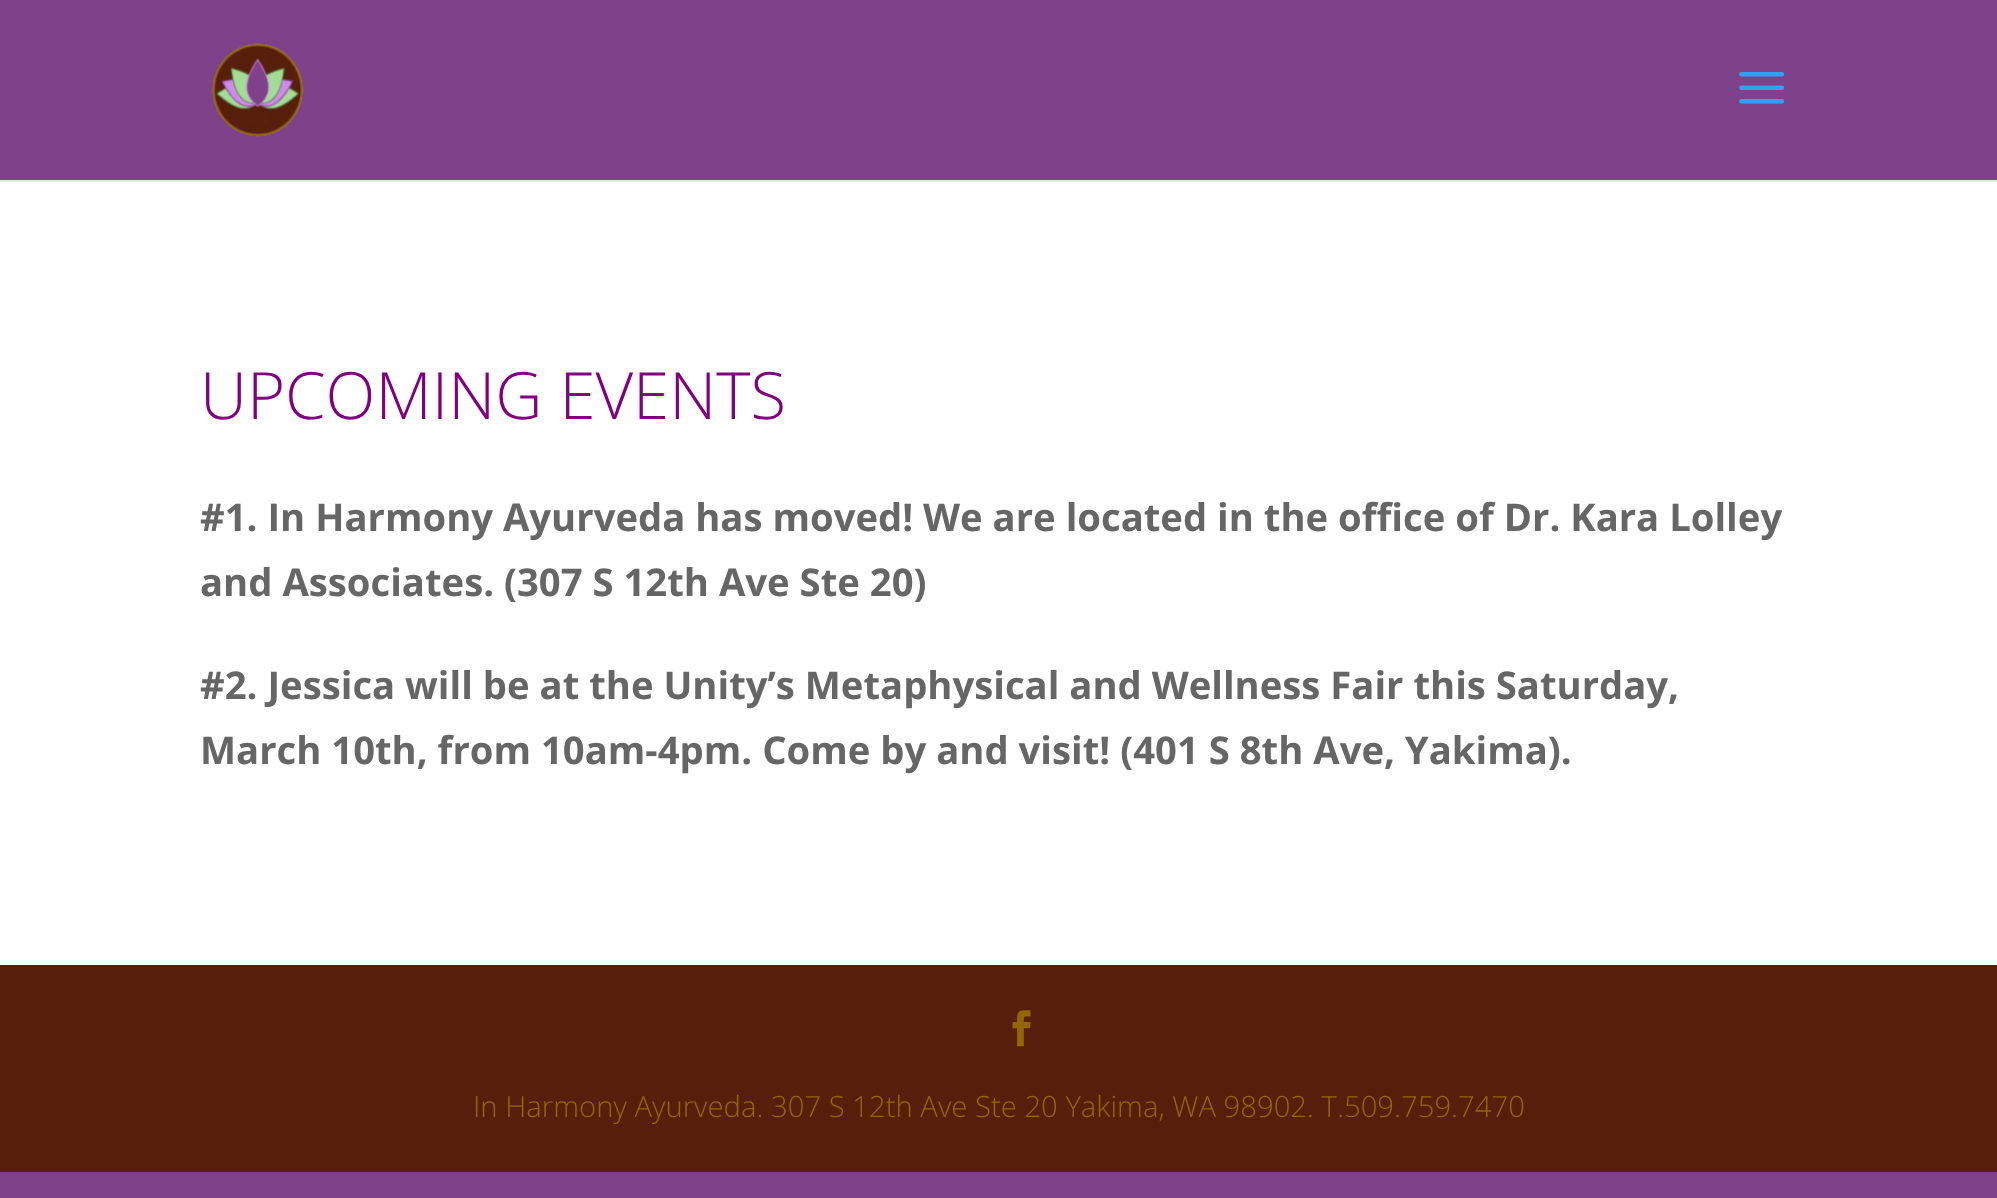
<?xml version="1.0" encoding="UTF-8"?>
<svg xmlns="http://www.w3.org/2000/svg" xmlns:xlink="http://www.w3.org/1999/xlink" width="1997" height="1198">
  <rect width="100%" height="100%" fill="#7e418a" />
  <rect y="180" width="1997" height="2" fill="#e6e6e6" />
  <image x="212" y="43" width="92" height="94" xlink:href="image1.png" />
  <image x="1739" y="72" width="46" height="32" xlink:href="image2.png" />
  <rect y="182" width="1997" height="783" fill="#ffffff" />
  <rect y="965" width="1997" height="207" fill="#571f0b" />
  <image x="1012" y="1010" width="19" height="37" xlink:href="image3.png" />
  <text x="200" y="419" style="font-family: Open Sans; font-size: 65.25px; font-weight: 300; fill: #800080">UPCOMING EVENTS</text>
  <text x="200" y="531" style="font-family: Open Sans; font-size: 38.25px; font-weight: bold; fill: #666666">#1. In Harmony Ayurveda has moved! We are located in the office of Dr. Kara Lolley</text>
  <text x="200" y="596" style="font-family: Open Sans; font-size: 38.25px; font-weight: bold; fill: #666666">and Associates. (307 S 12th Ave Ste 20)</text>
  <text x="200" y="699" style="font-family: Open Sans; font-size: 38.25px; font-weight: bold; fill: #666666">#2. Jessica will be at the Unity’s Metaphysical and Wellness Fair this Saturday,</text>
  <text x="200" y="764" style="font-family: Open Sans; font-size: 38.25px; font-weight: bold; fill: #666666">March 10th, from 10am-4pm. Come by and visit! (401 S 8th Ave, Yakima).</text>
  <text x="473" y="1117" style="font-family: Open Sans; font-size: 29.25px; font-weight: 300; fill: #936606">In Harmony Ayurveda. 307 S 12th Ave Ste 20 Yakima, WA 98902. T.509.759.7470</text>
</svg>
